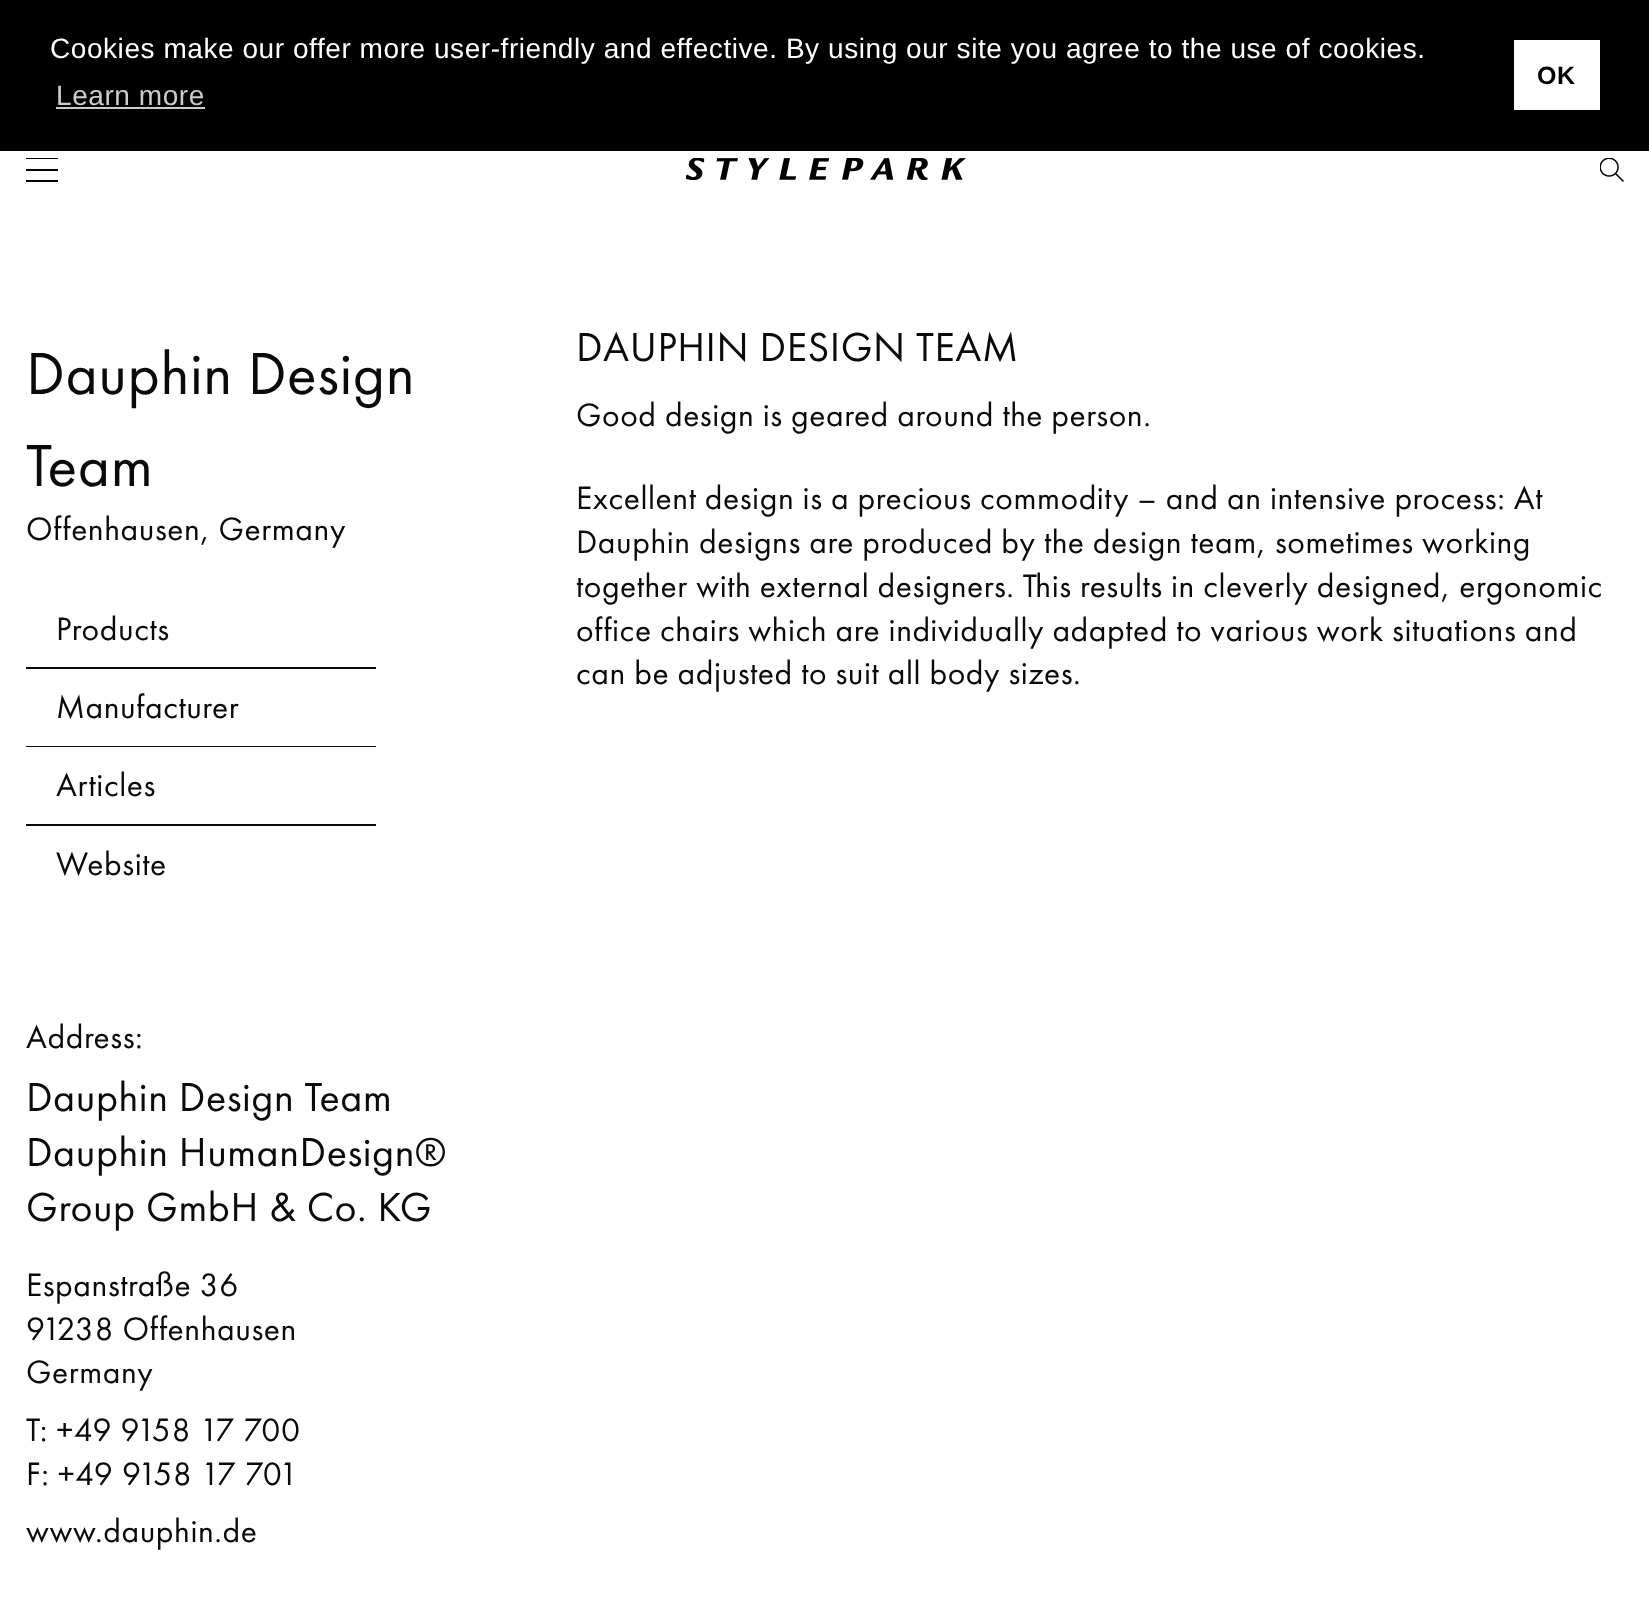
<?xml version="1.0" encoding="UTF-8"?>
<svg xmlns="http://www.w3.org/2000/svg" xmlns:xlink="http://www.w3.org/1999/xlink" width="1649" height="1611">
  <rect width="100%" height="100%" fill="#ffffff" />
  <rect width="1649" height="151" fill="#000000" />
  <rect x="56" y="107" width="149" height="2" fill="#cccccc" />
  <rect x="1514" y="40" width="86" height="70" fill="#ffffff" />
  <rect x="26" y="158" width="32" height="1" fill="#000000" />
  <rect x="26" y="180" width="32" height="2" fill="#000000" />
  <rect x="26" y="169" width="32" height="2" fill="#000000" />
  <image x="686" y="158" width="280" height="22" xlink:href="image1.png" />
  <image x="1600" y="158" width="24" height="24" xlink:href="image2.png" />
  <rect x="26" y="667" width="350" height="2" fill="#0a0a0a" />
  <rect x="26" y="746" width="350" height="1" fill="#0a0a0a" />
  <rect x="26" y="824" width="350" height="2" fill="#0a0a0a" />
  <text x="50" y="58" style="font-family: Liberation Sans; font-size: 28px; letter-spacing: 0.56px; fill: #ffffff">Cookies make our offer more user-friendly and effective. By using our site you agree to the use of cookies.</text>
  <text x="56" y="105" style="font-family: Liberation Sans; font-size: 28px; letter-spacing: 0.56px; fill: #cccccc">Learn more</text>
  <text x="1537" y="84" style="font-family: Liberation Sans; font-size: 25px; font-weight: bold; letter-spacing: 0.56px; fill: #000000">OK</text>
  <text x="26" y="394" style="font-family: Futura PT; font-size: 61.5px; letter-spacing: 0.56px; fill: #0a0a0a">Dauphin Design</text>
  <text x="26" y="486" style="font-family: Futura PT; font-size: 61.5px; letter-spacing: 0.56px; fill: #0a0a0a">Team</text>
  <text x="26" y="540" style="font-family: Futura PT; font-size: 33.6px; letter-spacing: 0.56px; fill: #0a0a0a">Offenhausen, Germany</text>
  <text x="56" y="640" style="font-family: Futura PT; font-size: 33.6px; letter-spacing: 0.56px; fill: #0a0a0a">Products</text>
  <text x="56" y="718" style="font-family: Futura PT; font-size: 33.6px; letter-spacing: 0.56px; fill: #0a0a0a">Manufacturer</text>
  <text x="56" y="796" style="font-family: Futura PT; font-size: 33.6px; letter-spacing: 0.56px; fill: #0a0a0a">Articles</text>
  <text x="56" y="875" style="font-family: Futura PT; font-size: 33.6px; letter-spacing: 0.56px; fill: #0a0a0a">Website</text>
  <text x="26" y="1048" style="font-family: Futura PT; font-size: 33.6px; letter-spacing: 0.56px; fill: #0a0a0a">Address:</text>
  <text x="26" y="1111" style="font-family: Futura PT; font-size: 42px; letter-spacing: 0.56px; fill: #0a0a0a">Dauphin Design Team</text>
  <text x="26" y="1166" style="font-family: Futura PT; font-size: 42px; letter-spacing: 0.56px; fill: #0a0a0a">Dauphin HumanDesign®</text>
  <text x="26" y="1221" style="font-family: Futura PT; font-size: 42px; letter-spacing: 0.56px; fill: #0a0a0a">Group GmbH &amp; Co. KG</text>
  <text x="26" y="1296" style="font-family: Futura PT; font-size: 33.6px; letter-spacing: 0.56px; fill: #0a0a0a">Espanstraße 36</text>
  <text x="26" y="1340" style="font-family: Futura PT; font-size: 33.6px; letter-spacing: 0.56px; fill: #0a0a0a">91238 Offenhausen</text>
  <text x="26" y="1383" style="font-family: Futura PT; font-size: 33.6px; letter-spacing: 0.56px; fill: #0a0a0a">Germany</text>
  <text x="26" y="1441" style="font-family: Futura PT; font-size: 33.6px; letter-spacing: 0.56px; fill: #0a0a0a">T: +49 9158 17 700</text>
  <text x="26" y="1485" style="font-family: Futura PT; font-size: 33.6px; letter-spacing: 0.56px; fill: #0a0a0a">F: +49 9158 17 701</text>
  <text x="26" y="1542" style="font-family: Futura PT; font-size: 33.6px; letter-spacing: 0.56px; fill: #0a0a0a">www.dauphin.de</text>
  <text x="576" y="361" style="font-family: Futura PT; font-size: 42px; letter-spacing: 0.56px; fill: #0a0a0a">DAUPHIN DESIGN TEAM</text>
  <text x="576" y="426" style="font-family: Futura PT; font-size: 33.6px; letter-spacing: 0.56px; fill: #0a0a0a">Good design is geared around the person.</text>
  <text x="576" y="509" style="font-family: Futura PT; font-size: 33.6px; letter-spacing: 0.56px; fill: #0a0a0a">Excellent design is a precious commodity – and an intensive process: At</text>
  <text x="576" y="553" style="font-family: Futura PT; font-size: 33.6px; letter-spacing: 0.56px; fill: #0a0a0a">Dauphin designs are produced by the design team, sometimes working</text>
  <text x="576" y="597" style="font-family: Futura PT; font-size: 33.6px; letter-spacing: 0.56px; fill: #0a0a0a">together with external designers. This results in cleverly designed, ergonomic</text>
  <text x="576" y="641" style="font-family: Futura PT; font-size: 33.6px; letter-spacing: 0.56px; fill: #0a0a0a">office chairs which are individually adapted to various work situations and</text>
  <text x="576" y="684" style="font-family: Futura PT; font-size: 33.6px; letter-spacing: 0.56px; fill: #0a0a0a">can be adjusted to suit all body sizes.</text>
</svg>
